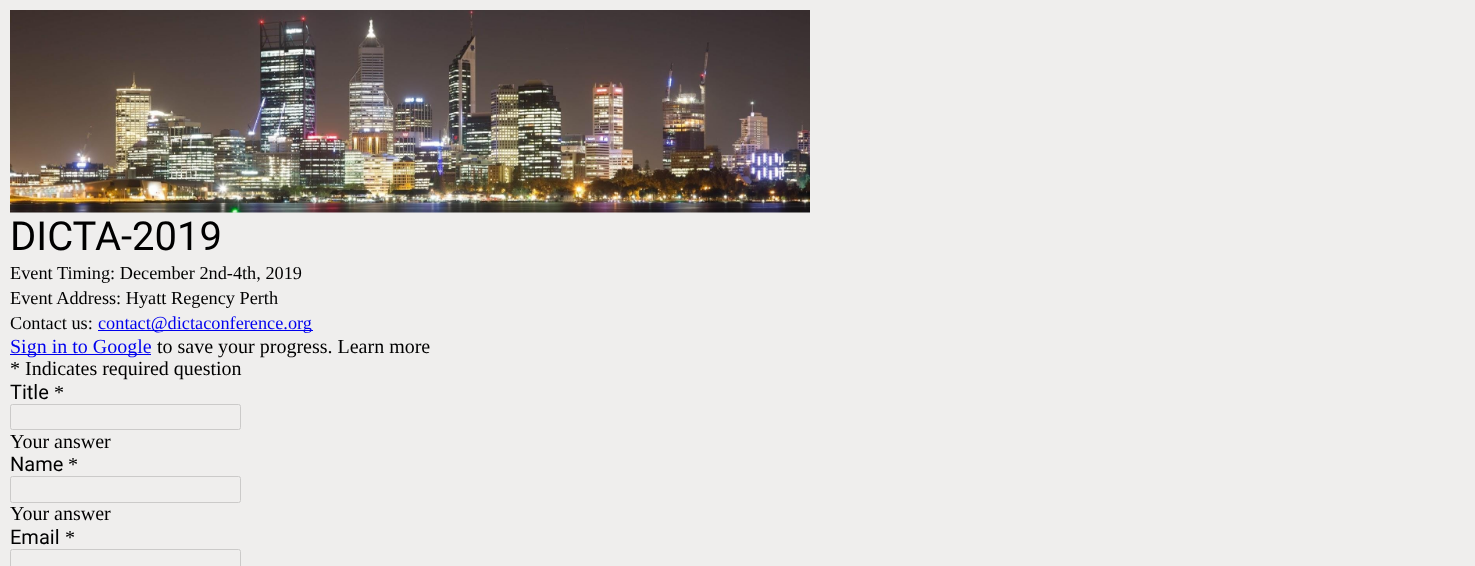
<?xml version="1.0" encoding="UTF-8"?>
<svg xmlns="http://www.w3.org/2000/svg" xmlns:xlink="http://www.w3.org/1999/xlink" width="1475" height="566">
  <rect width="100%" height="100%" fill="#efeeed" />
  <image x="10" y="10" width="800" height="203" xlink:href="image1.png" />
  <rect x="98" y="330" width="215" height="1" fill="#0000ee" />
  <rect x="10" y="354" width="141" height="1" fill="#0000ee" />
  <rect x="10.5" y="404.5" width="230" height="25" rx="2" fill="none" stroke="#cbcac9" />
  <rect x="10.5" y="476.5" width="230" height="26" rx="2" fill="none" stroke="#cbcac9" />
  <rect x="10.5" y="549.5" width="230" height="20" rx="2" fill="none" stroke="#cbcac9" />
  <text x="10" y="250" style="font-family: Roboto; font-size: 40px; fill: #000000">DICTA-2019</text>
  <text x="10" y="279" style="font-family: Liberation Serif; font-size: 18.3px; fill: #000000">Event Timing: December 2nd-4th, 2019</text>
  <text x="10" y="304" style="font-family: Liberation Serif; font-size: 18.3px; fill: #000000">Event Address: Hyatt Regency Perth</text>
  <text x="10" y="329" style="font-family: Liberation Serif; font-size: 18.3px; fill: #000000">Contact us:</text>
  <text x="98" y="329" style="font-family: Liberation Serif; font-size: 18.3px; fill: #0000ee">contact@dictaconference.org</text>
  <text x="10" y="353" style="font-family: Liberation Serif; font-size: 20px; fill: #0000ee">Sign in to Google</text>
  <text x="157" y="353" style="font-family: Liberation Serif; font-size: 20px; fill: #000000">to save your progress. Learn more</text>
  <text x="10" y="375" style="font-family: Liberation Serif; font-size: 20px; fill: #000000">* Indicates required question</text>
  <text x="10" y="399" style="font-family: Roboto; font-size: 20px; fill: #000000">Title</text>
  <text x="54" y="399" style="font-family: Liberation Serif; font-size: 20px; fill: #000000">*</text>
  <text x="10" y="448" style="font-family: Liberation Serif; font-size: 20px; fill: #000000">Your answer</text>
  <text x="10" y="471" style="font-family: Roboto; font-size: 20px; fill: #000000">Name</text>
  <text x="68" y="471" style="font-family: Liberation Serif; font-size: 20px; fill: #000000">*</text>
  <text x="10" y="520" style="font-family: Liberation Serif; font-size: 20px; fill: #000000">Your answer</text>
  <text x="10" y="544" style="font-family: Roboto; font-size: 20px; fill: #000000">Email</text>
  <text x="65" y="544" style="font-family: Liberation Serif; font-size: 20px; fill: #000000">*</text>
</svg>
